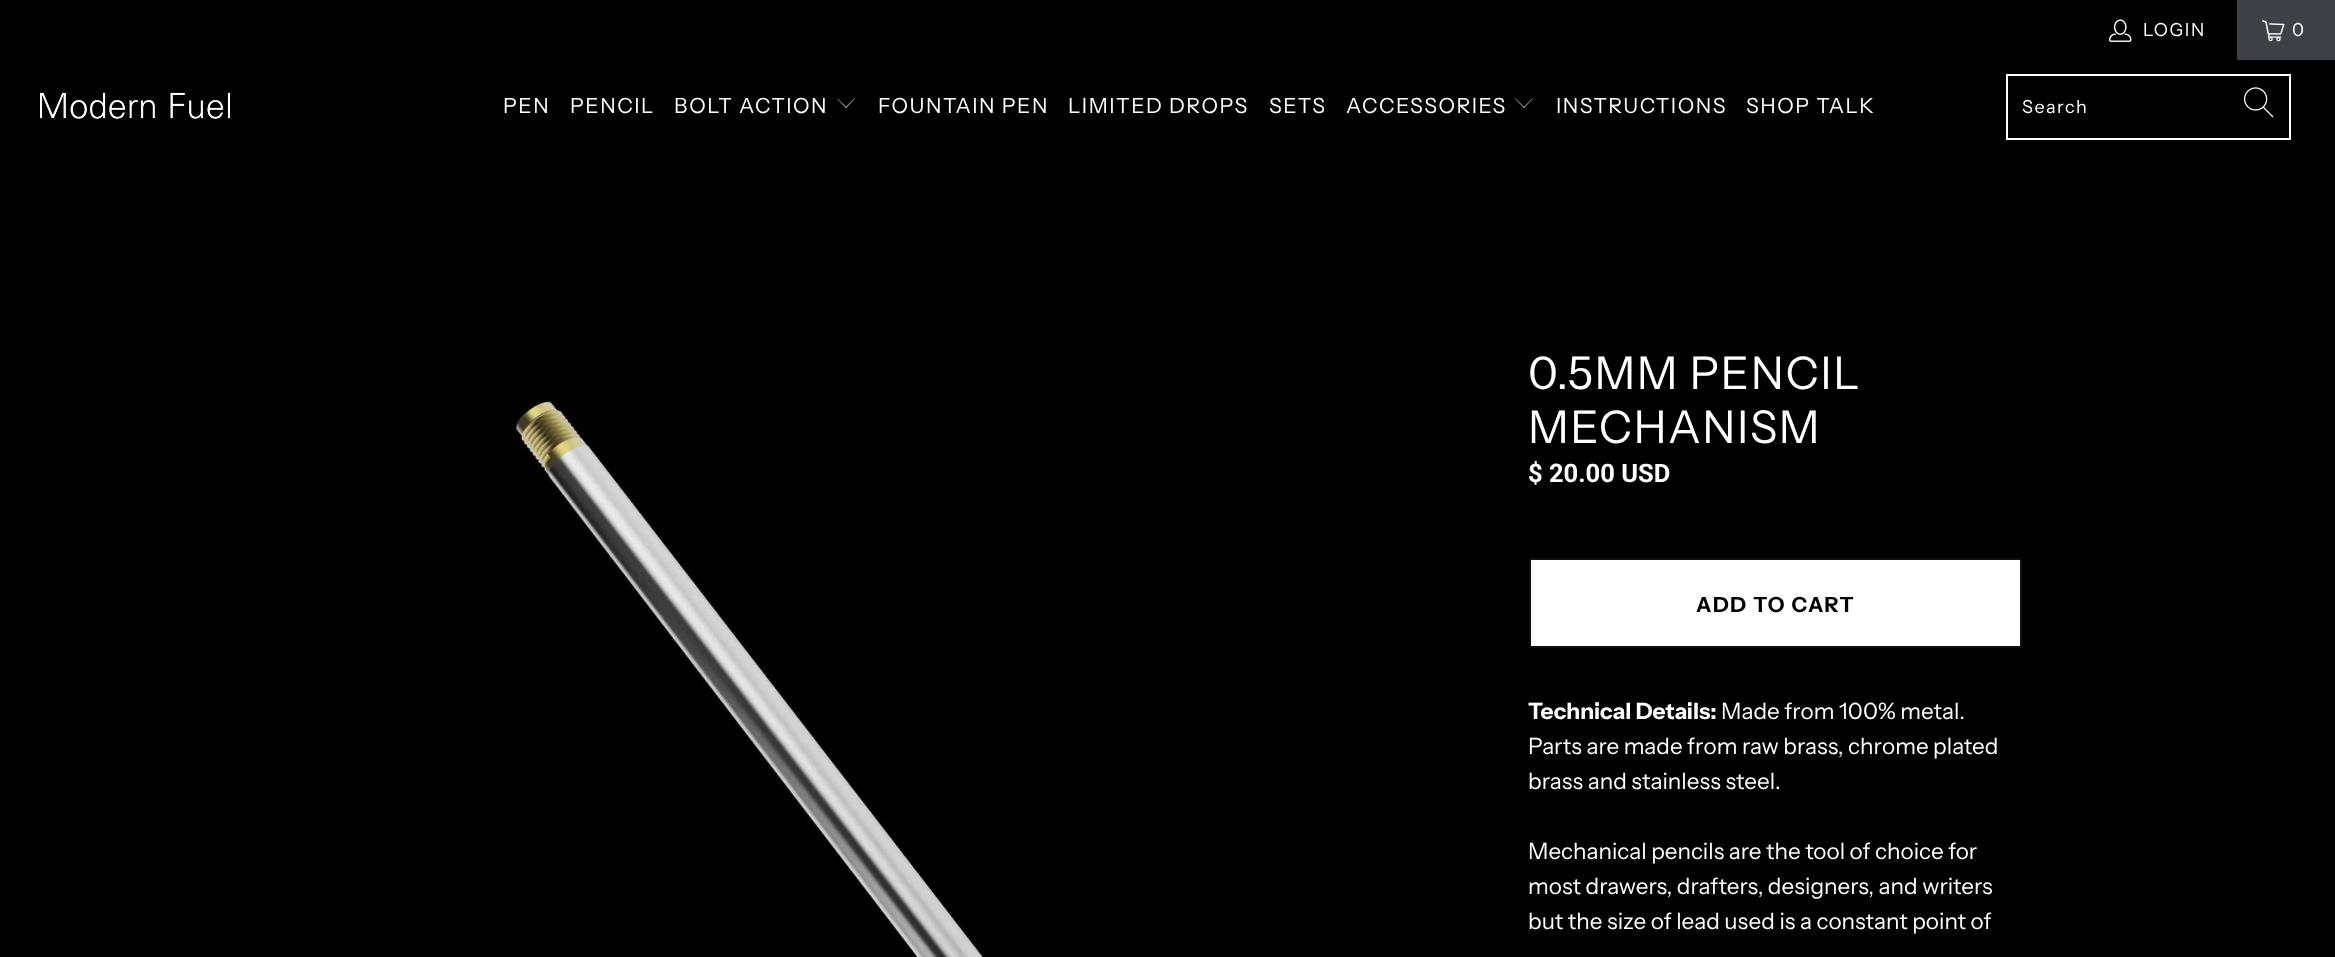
<?xml version="1.0" encoding="UTF-8"?>
<svg xmlns="http://www.w3.org/2000/svg" xmlns:xlink="http://www.w3.org/1999/xlink" width="2335" height="957">
  <rect width="100%" height="100%" fill="#000000" />
  <image x="2109" y="19" width="23" height="23" xlink:href="image1.png" />
  <rect x="2237" width="98" height="60" fill="#3e4246" />
  <image x="2262" y="20" width="23" height="22" xlink:href="image2.png" />
  <image x="40" y="92" width="190" height="27" xlink:href="image3.png" />
  <path d="M 846 108 l -9 -9.5 h 0.5 l 8.5 8.5 l 8.5 -8.5 h 0.5 z" fill="#ffffff" />
  <path d="M 1524 108 l -9 -9.5 h 0.5 l 8.5 8.5 l 8.5 -8.5 h 0.5 z" fill="#ffffff" />
  <rect x="2007" y="75" width="283" height="64" fill="none" stroke="#ffffff" stroke-width="2" />
  <image x="2244" y="87" width="30" height="31" xlink:href="image4.png" />
  <image x="515" y="399" width="470" height="558" xlink:href="image5.png" />
  <rect x="1530" y="559" width="491" height="88" fill="#ffffff" stroke="#101010" stroke-width="2" />
  <text x="2143" y="36" style="font-family: Instrument Sans; font-size: 18px; letter-spacing: 1.5px; fill: #ffffff">LOGIN</text>
  <text x="2292" y="36" style="font-family: Instrument Sans; font-size: 18px; letter-spacing: 1.5px; fill: #ffffff">0</text>
  <text x="503" y="113" style="font-family: Instrument Sans; font-size: 21px; letter-spacing: 1.5px; fill: #ffffff">PEN</text>
  <text x="570" y="113" style="font-family: Instrument Sans; font-size: 21px; letter-spacing: 1.5px; fill: #ffffff">PENCIL</text>
  <text x="674" y="113" style="font-family: Instrument Sans; font-size: 21px; letter-spacing: 1.5px; fill: #ffffff">BOLT ACTION</text>
  <text x="878" y="113" style="font-family: Instrument Sans; font-size: 21px; letter-spacing: 1.5px; fill: #ffffff">FOUNTAIN PEN</text>
  <text x="1068" y="113" style="font-family: Instrument Sans; font-size: 21px; letter-spacing: 1.5px; fill: #ffffff">LIMITED DROPS</text>
  <text x="1269" y="113" style="font-family: Instrument Sans; font-size: 21px; letter-spacing: 1.5px; fill: #ffffff">SETS</text>
  <text x="1346" y="113" style="font-family: Instrument Sans; font-size: 21px; letter-spacing: 1.5px; fill: #ffffff">ACCESSORIES</text>
  <text x="1556" y="113" style="font-family: Instrument Sans; font-size: 21px; letter-spacing: 1.5px; fill: #ffffff">INSTRUCTIONS</text>
  <text x="1746" y="113" style="font-family: Instrument Sans; font-size: 21px; letter-spacing: 1.5px; fill: #ffffff">SHOP TALK</text>
  <text x="2022" y="113" style="font-family: Instrument Sans; font-size: 18px; letter-spacing: 1.5px; fill: #ffffff">Search</text>
  <text x="1528" y="389" style="font-family: Instrument Sans; font-size: 45px; letter-spacing: 1.5px; fill: #ffffff">0.5MM PENCIL</text>
  <text x="1528" y="443" style="font-family: Instrument Sans; font-size: 45px; letter-spacing: 1.5px; fill: #ffffff">MECHANISM</text>
  <text x="1528" y="482" style="font-family: Roboto; font-size: 25.5px; font-weight: bold; fill: #ffffff">$ 20.00 USD</text>
  <text x="1696" y="612" style="font-family: Instrument Sans; font-size: 21px; font-weight: bold; letter-spacing: 1.5px; fill: #000000">ADD TO CART</text>
  <text x="1528" y="719" style="font-family: Instrument Sans; font-size: 22.5px; font-weight: bold; fill: #ffffff">Technical Details:</text>
  <text x="1721" y="719" style="font-family: Instrument Sans; font-size: 22.5px; fill: #ffffff">Made from 100% metal.</text>
  <text x="1528" y="754" style="font-family: Instrument Sans; font-size: 22.5px; fill: #ffffff">Parts are made from raw brass, chrome plated</text>
  <text x="1528" y="789" style="font-family: Instrument Sans; font-size: 22.5px; fill: #ffffff">brass and stainless steel.</text>
  <text x="1528" y="859" style="font-family: Instrument Sans; font-size: 22.5px; fill: #ffffff">Mechanical pencils are the tool of choice for</text>
  <text x="1528" y="894" style="font-family: Instrument Sans; font-size: 22.5px; fill: #ffffff">most drawers, drafters, designers, and writers</text>
  <text x="1528" y="929" style="font-family: Instrument Sans; font-size: 22.5px; fill: #ffffff">but the size of lead used is a constant point of</text>
</svg>
